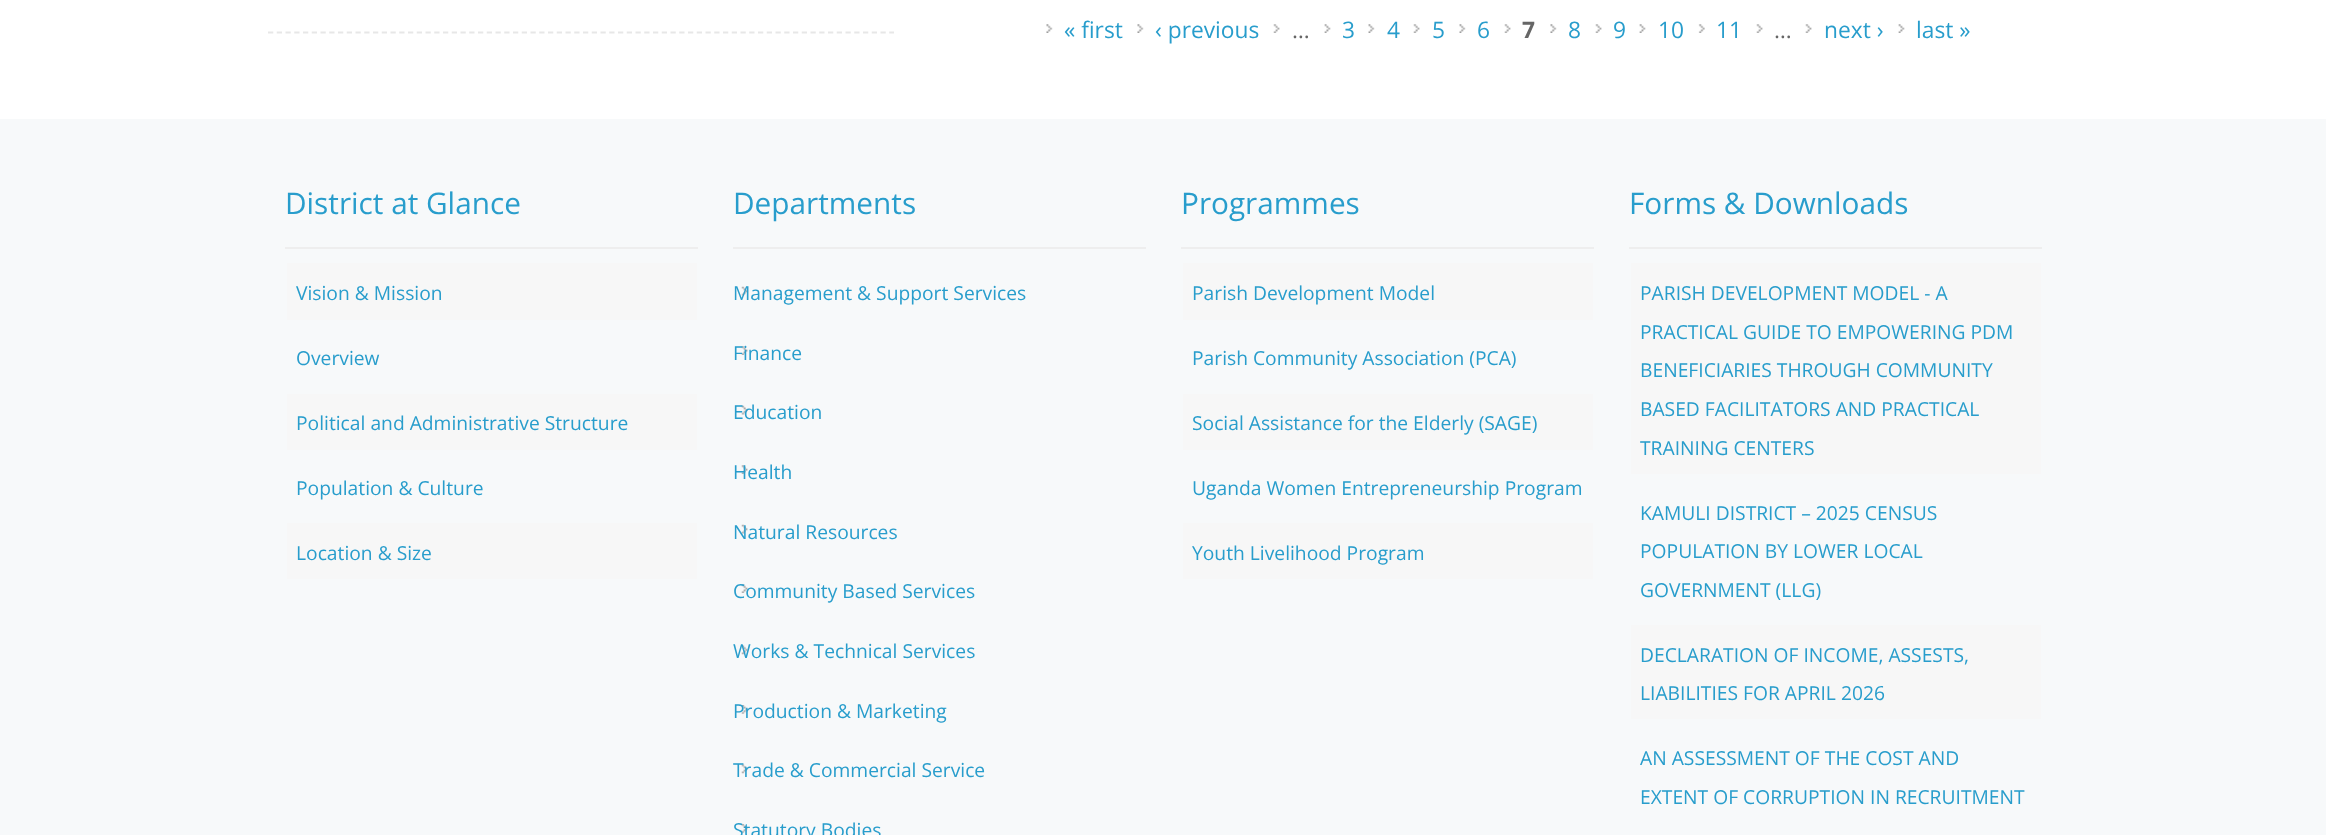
<?xml version="1.0" encoding="UTF-8"?>
<svg xmlns="http://www.w3.org/2000/svg" xmlns:xlink="http://www.w3.org/1999/xlink" width="2326" height="835">
  <rect width="100%" height="100%" fill="#ffffff" />
  <path d="M 268 32.5 h 626" fill="none" stroke="#e7e7e7" stroke-width="1.8" stroke-dasharray="5.25 3.5" />
  <image x="1046" y="24" width="7" height="9" xlink:href="image1.png" />
  <image x="1137" y="24" width="7" height="9" xlink:href="image1.png" />
  <image x="1273" y="24" width="7" height="9" xlink:href="image2.png" />
  <image x="1324" y="24" width="7" height="9" xlink:href="image3.png" />
  <image x="1368" y="24" width="7" height="9" xlink:href="image4.png" />
  <image x="1413" y="24" width="7" height="9" xlink:href="image5.png" />
  <image x="1459" y="24" width="7" height="9" xlink:href="image4.png" />
  <image x="1504" y="24" width="7" height="9" xlink:href="image5.png" />
  <image x="1550" y="24" width="7" height="9" xlink:href="image1.png" />
  <image x="1595" y="24" width="7" height="9" xlink:href="image5.png" />
  <image x="1639" y="24" width="7" height="9" xlink:href="image6.png" />
  <image x="1698" y="24" width="7" height="9" xlink:href="image7.png" />
  <image x="1756" y="24" width="7" height="9" xlink:href="image5.png" />
  <image x="1805" y="24" width="7" height="9" xlink:href="image2.png" />
  <image x="1898" y="24" width="7" height="9" xlink:href="image3.png" />
  <rect y="119" width="2326" height="716" fill="#f7f9fa" />
  <rect x="285" y="247" width="413" height="2" fill="#eeeeee" />
  <rect x="287" y="263" width="410" height="57" fill="#f7f7f7" />
  <rect x="287" y="394" width="410" height="56" fill="#f7f7f7" />
  <rect x="287" y="523" width="410" height="56" fill="#f7f7f7" />
  <rect x="733" y="247" width="413" height="2" fill="#eeeeee" />
  <image x="741" y="286" width="7" height="10" xlink:href="image8.png" />
  <image x="741" y="346" width="7" height="9" xlink:href="image9.png" />
  <image x="741" y="405" width="7" height="10" xlink:href="image8.png" />
  <image x="741" y="465" width="7" height="9" xlink:href="image10.png" />
  <image x="741" y="524" width="7" height="10" xlink:href="image8.png" />
  <image x="741" y="584" width="7" height="9" xlink:href="image9.png" />
  <image x="741" y="645" width="7" height="10" xlink:href="image11.png" />
  <image x="741" y="705" width="7" height="9" xlink:href="image12.png" />
  <image x="741" y="764" width="7" height="10" xlink:href="image11.png" />
  <image x="741" y="824" width="7" height="9" xlink:href="image12.png" />
  <rect x="1181" y="247" width="413" height="2" fill="#eeeeee" />
  <rect x="1183" y="263" width="410" height="57" fill="#f7f7f7" />
  <rect x="1183" y="394" width="410" height="56" fill="#f7f7f7" />
  <rect x="1183" y="523" width="410" height="56" fill="#f7f7f7" />
  <rect x="1629" y="247" width="413" height="2" fill="#eeeeee" />
  <rect x="1631" y="263" width="410" height="211" fill="#f7f7f7" />
  <rect x="1631" y="625" width="410" height="94" fill="#f7f7f7" />
  <text x="1064" y="38" style="font-family: Open Sans; font-size: 22.75px; fill: #289dcc">« first</text>
  <text x="1155" y="38" style="font-family: Open Sans; font-size: 22.75px; fill: #289dcc">‹ previous</text>
  <text x="1342" y="38" style="font-family: Open Sans; font-size: 22.75px; fill: #289dcc">3</text>
  <text x="1387" y="38" style="font-family: Open Sans; font-size: 22.75px; fill: #289dcc">4</text>
  <text x="1432" y="38" style="font-family: Open Sans; font-size: 22.75px; fill: #289dcc">5</text>
  <text x="1477" y="38" style="font-family: Open Sans; font-size: 22.75px; fill: #289dcc">6</text>
  <text x="1522" y="38" style="font-family: Open Sans; font-size: 22.75px; font-weight: bold; fill: #666666">7</text>
  <text x="1568" y="38" style="font-family: Open Sans; font-size: 22.75px; fill: #289dcc">8</text>
  <text x="1613" y="38" style="font-family: Open Sans; font-size: 22.75px; fill: #289dcc">9</text>
  <text x="1658" y="38" style="font-family: Open Sans; font-size: 22.75px; fill: #289dcc">10</text>
  <text x="1716" y="38" style="font-family: Open Sans; font-size: 22.75px; fill: #289dcc">11</text>
  <text x="1824" y="38" style="font-family: Open Sans; font-size: 22.75px; fill: #289dcc">next ›</text>
  <text x="1916" y="38" style="font-family: Open Sans; font-size: 22.75px; fill: #289dcc">last »</text>
  <text x="1292" y="38" style="font-family: Open Sans; font-size: 22.75px; fill: #666666">…</text>
  <text x="1774" y="38" style="font-family: Open Sans; font-size: 22.75px; fill: #666666">…</text>
  <text x="285" y="214" style="font-family: Open Sans; font-size: 29.75px; fill: #289dcc">District at Glance</text>
  <text x="296" y="300" style="font-family: Open Sans; font-size: 19.25px; fill: #289dcc">Vision &amp; Mission</text>
  <text x="296" y="365" style="font-family: Open Sans; font-size: 19.25px; fill: #289dcc">Overview</text>
  <text x="296" y="430" style="font-family: Open Sans; font-size: 19.25px; fill: #289dcc">Political and Administrative Structure</text>
  <text x="296" y="495" style="font-family: Open Sans; font-size: 19.25px; fill: #289dcc">Population &amp; Culture</text>
  <text x="296" y="560" style="font-family: Open Sans; font-size: 19.25px; fill: #289dcc">Location &amp; Size</text>
  <text x="733" y="214" style="font-family: Open Sans; font-size: 29.75px; fill: #289dcc">Departments</text>
  <text x="733" y="300" style="font-family: Open Sans; font-size: 19.25px; fill: #289dcc">Management &amp; Support Services</text>
  <text x="733" y="360" style="font-family: Open Sans; font-size: 19.25px; fill: #289dcc">Finance</text>
  <text x="733" y="419" style="font-family: Open Sans; font-size: 19.25px; fill: #289dcc">Education</text>
  <text x="733" y="479" style="font-family: Open Sans; font-size: 19.25px; fill: #289dcc">Health</text>
  <text x="733" y="539" style="font-family: Open Sans; font-size: 19.25px; fill: #289dcc">Natural Resources</text>
  <text x="733" y="598" style="font-family: Open Sans; font-size: 19.25px; fill: #289dcc">Community Based Services</text>
  <text x="733" y="658" style="font-family: Open Sans; font-size: 19.25px; fill: #289dcc">Works &amp; Technical Services</text>
  <text x="733" y="718" style="font-family: Open Sans; font-size: 19.25px; fill: #289dcc">Production &amp; Marketing</text>
  <text x="733" y="777" style="font-family: Open Sans; font-size: 19.25px; fill: #289dcc">Trade &amp; Commercial Service</text>
  <text x="733" y="837" style="font-family: Open Sans; font-size: 19.25px; fill: #289dcc">Statutory Bodies</text>
  <text x="1181" y="214" style="font-family: Open Sans; font-size: 29.75px; fill: #289dcc">Programmes</text>
  <text x="1192" y="300" style="font-family: Open Sans; font-size: 19.25px; fill: #289dcc">Parish Development Model</text>
  <text x="1192" y="365" style="font-family: Open Sans; font-size: 19.25px; fill: #289dcc">Parish Community Association (PCA)</text>
  <text x="1192" y="430" style="font-family: Open Sans; font-size: 19.25px; fill: #289dcc">Social Assistance for the Elderly (SAGE)</text>
  <text x="1192" y="495" style="font-family: Open Sans; font-size: 19.25px; fill: #289dcc">Uganda Women Entrepreneurship Program</text>
  <text x="1192" y="560" style="font-family: Open Sans; font-size: 19.25px; fill: #289dcc">Youth Livelihood Program</text>
  <text x="1629" y="214" style="font-family: Open Sans; font-size: 29.75px; fill: #289dcc">Forms &amp; Downloads</text>
  <text x="1640" y="300" style="font-family: Open Sans; font-size: 19.25px; fill: #289dcc">PARISH DEVELOPMENT MODEL - A</text>
  <text x="1640" y="339" style="font-family: Open Sans; font-size: 19.25px; fill: #289dcc">PRACTICAL GUIDE TO EMPOWERING PDM</text>
  <text x="1640" y="377" style="font-family: Open Sans; font-size: 19.25px; fill: #289dcc">BENEFICIARIES THROUGH COMMUNITY</text>
  <text x="1640" y="416" style="font-family: Open Sans; font-size: 19.25px; fill: #289dcc">BASED FACILITATORS AND PRACTICAL</text>
  <text x="1640" y="455" style="font-family: Open Sans; font-size: 19.25px; fill: #289dcc">TRAINING CENTERS</text>
  <text x="1640" y="520" style="font-family: Open Sans; font-size: 19.25px; fill: #289dcc">KAMULI DISTRICT – 2025 CENSUS</text>
  <text x="1640" y="558" style="font-family: Open Sans; font-size: 19.25px; fill: #289dcc">POPULATION BY LOWER LOCAL</text>
  <text x="1640" y="597" style="font-family: Open Sans; font-size: 19.25px; fill: #289dcc">GOVERNMENT (LLG)</text>
  <text x="1640" y="662" style="font-family: Open Sans; font-size: 19.25px; fill: #289dcc">DECLARATION OF INCOME, ASSESTS,</text>
  <text x="1640" y="700" style="font-family: Open Sans; font-size: 19.25px; fill: #289dcc">LIABILITIES FOR APRIL 2026</text>
  <text x="1640" y="765" style="font-family: Open Sans; font-size: 19.25px; fill: #289dcc">AN ASSESSMENT OF THE COST AND</text>
  <text x="1640" y="804" style="font-family: Open Sans; font-size: 19.25px; fill: #289dcc">EXTENT OF CORRUPTION IN RECRUITMENT</text>
</svg>
